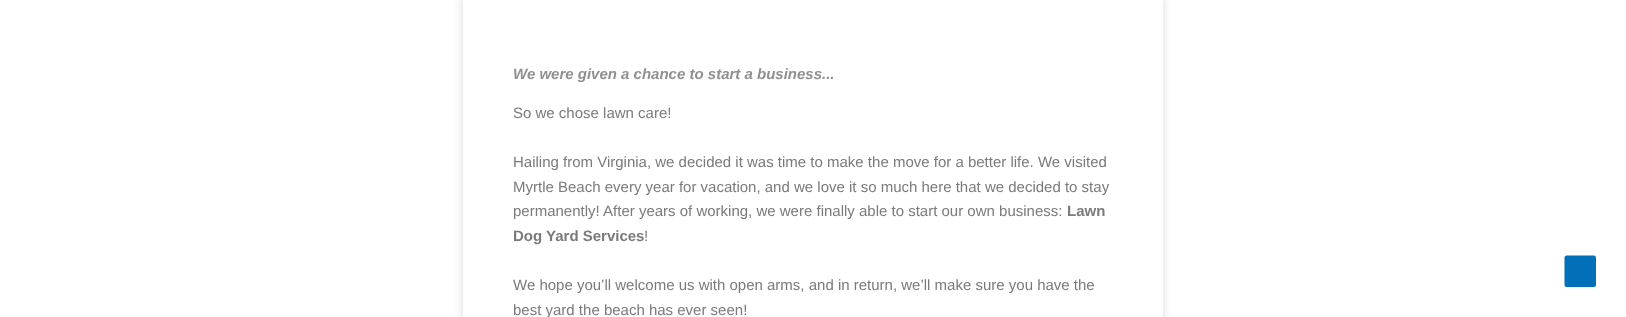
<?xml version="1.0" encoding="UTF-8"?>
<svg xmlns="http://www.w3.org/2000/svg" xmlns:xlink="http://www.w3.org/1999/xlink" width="1626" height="317">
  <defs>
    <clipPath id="clip1"><path d="M 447 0 h 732 v 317 h -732 z m 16 -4 h 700 v 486 h -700 z" clip-rule="evenodd" /></clipPath>
  </defs>
  <rect width="100%" height="100%" fill="#ffffff" />
  <g clip-path="url(#clip1)">
    <rect x="463" y="-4" width="700" height="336" fill="#000000" fill-opacity="0.15" filter="blur(5px)" />
  </g>
  <path d="M 1594 287 h -27.5 c -1 0 -2 -1 -2 -2 v -27.5 c 0 -1 1 -2 2 -2 h 27.5 c 1 0 2 1 2 2 v 27.5 c 0 1 -1 2 -2 2 z" fill="#0170b9" />
  <text x="513" y="79" style="font-family: Liberation Sans; font-size: 15px; font-weight: bold; font-style: italic; fill: #909090">We were given a chance to start a business...</text>
  <text x="513" y="118" style="font-family: Liberation Sans; font-size: 15px; fill: #7a7a7a">So we chose lawn care!</text>
  <text x="513" y="167" style="font-family: Liberation Sans; font-size: 15px; fill: #7a7a7a">Hailing from Virginia, we decided it was time to make the move for a better life. We visited</text>
  <text x="513" y="192" style="font-family: Liberation Sans; font-size: 15px; fill: #7a7a7a">Myrtle Beach every year for vacation, and we love it so much here that we decided to stay</text>
  <text x="513" y="216" style="font-family: Liberation Sans; font-size: 15px; fill: #7a7a7a">permanently! After years of working, we were finally able to start our own business:</text>
  <text x="1067" y="216" style="font-family: Liberation Sans; font-size: 15px; font-weight: bold; fill: #7a7a7a">Lawn</text>
  <text x="513" y="241" style="font-family: Liberation Sans; font-size: 15px; font-weight: bold; fill: #7a7a7a">Dog Yard Services</text>
  <text x="644" y="241" style="font-family: Liberation Sans; font-size: 15px; fill: #7a7a7a">!</text>
  <text x="513" y="290" style="font-family: Liberation Sans; font-size: 15px; fill: #7a7a7a">We hope you’ll welcome us with open arms, and in return, we’ll make sure you have the</text>
  <text x="513" y="315" style="font-family: Liberation Sans; font-size: 15px; fill: #7a7a7a">best yard the beach has ever seen!</text>
</svg>
